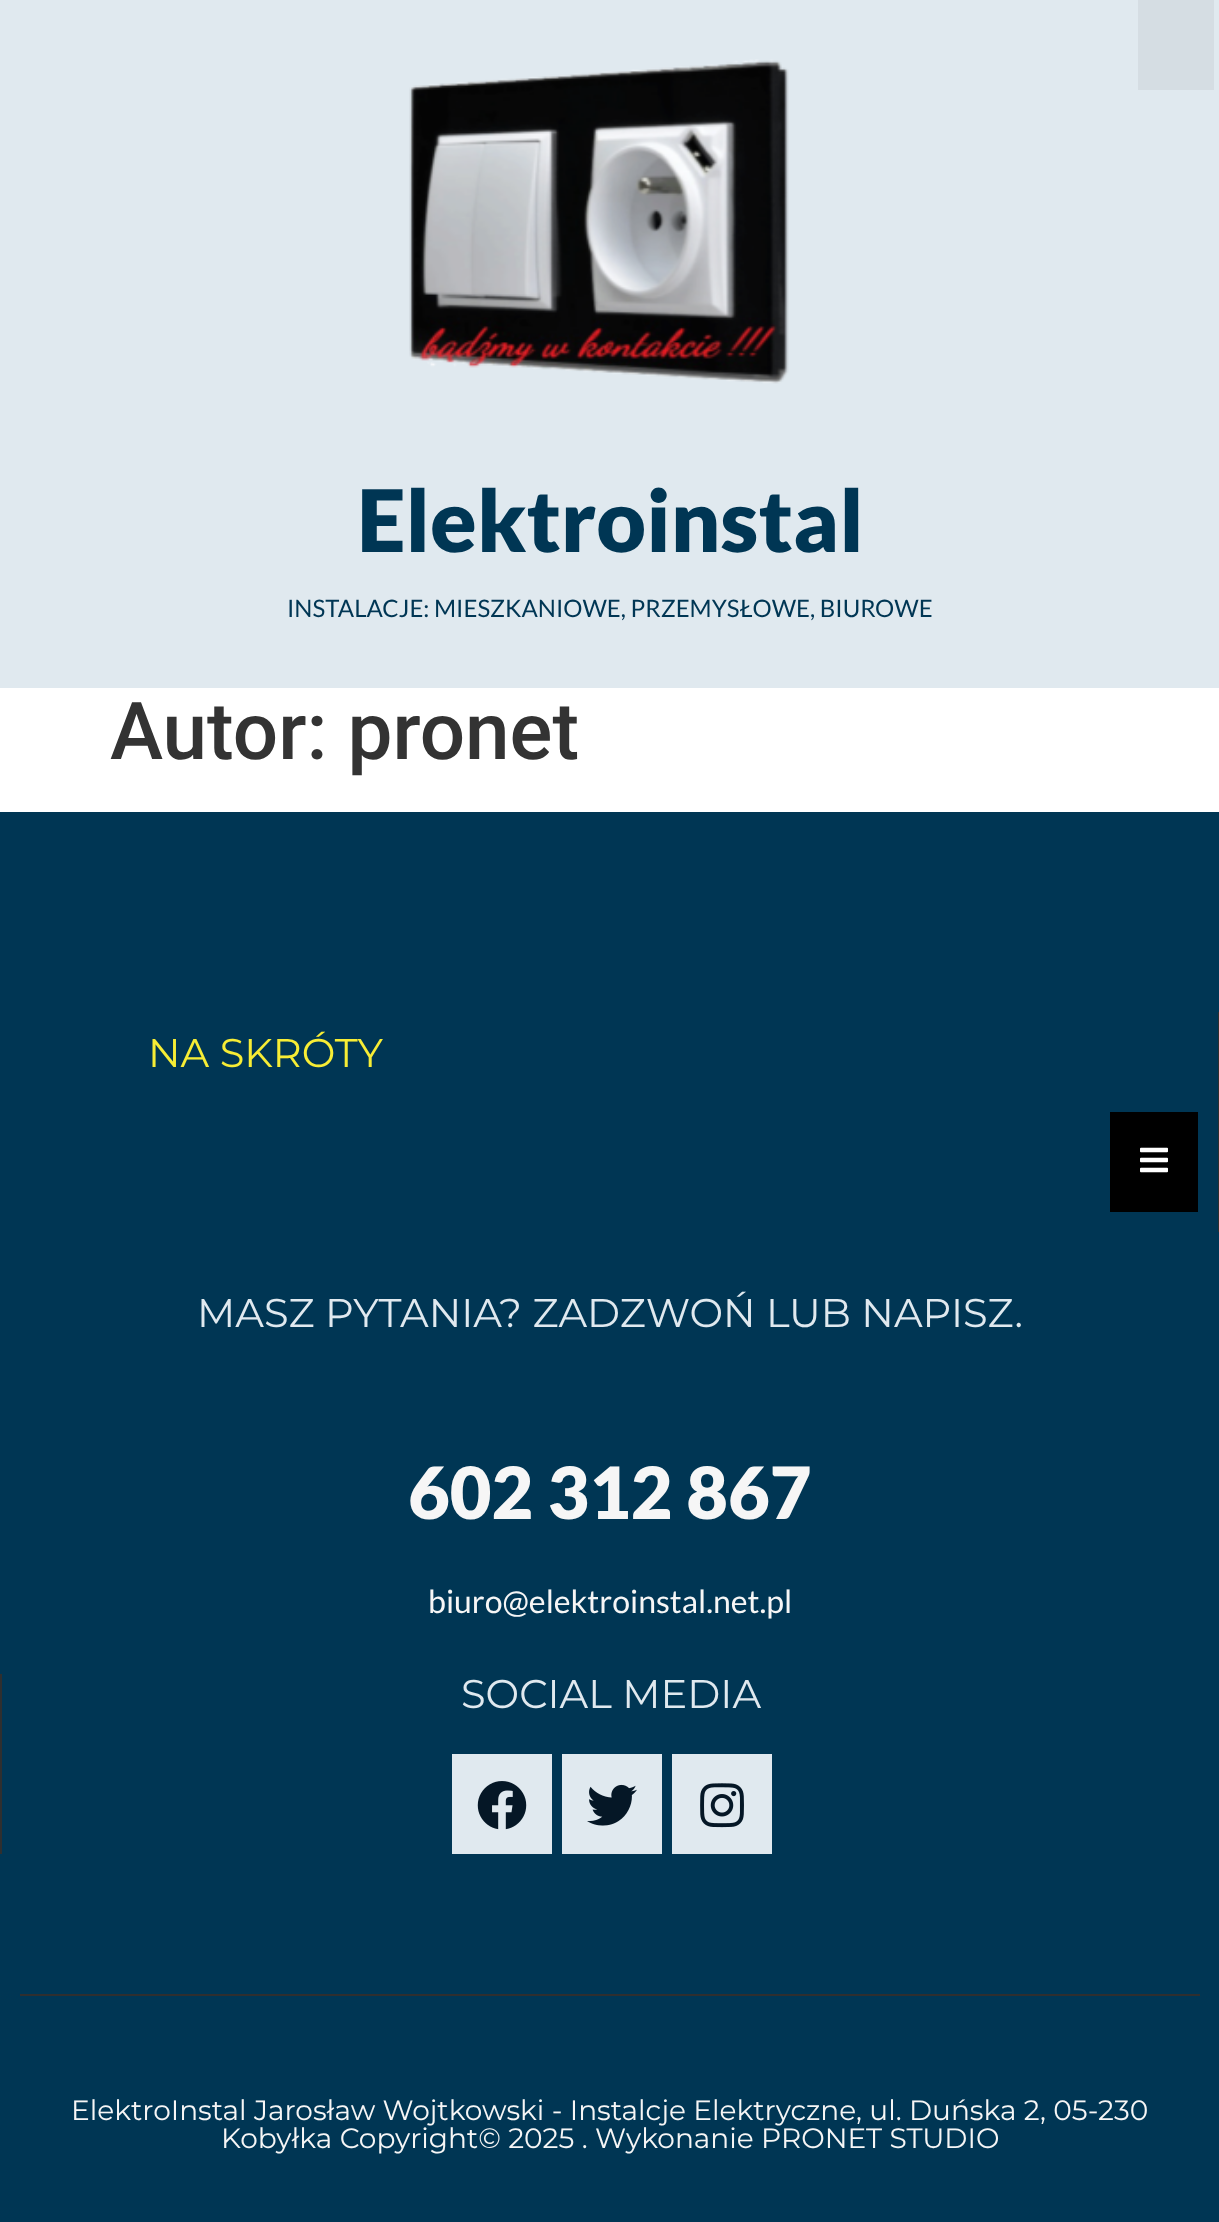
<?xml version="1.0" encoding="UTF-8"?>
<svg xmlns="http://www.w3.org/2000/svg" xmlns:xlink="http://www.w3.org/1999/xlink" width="1219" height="2222">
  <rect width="100%" height="100%" fill="#ffffff" />
  <rect width="1219" height="688" fill="#e0e9ef" />
  <rect x="1138" width="76" height="90" fill="#d5dde3" />
  <image x="409" y="59" width="380" height="325" xlink:href="image1.png" />
  <rect y="812" width="1219" height="1410" fill="#003654" />
  <rect x="1218" y="1012" width="1" height="220" fill="#2f2f2f" />
  <rect x="1110" y="1112" width="88" height="100" fill="#000000" />
  <image x="1140" y="1147" width="28" height="26" xlink:href="image2.png" />
  <rect y="1674" width="2" height="180" fill="#2f2f2f" />
  <rect x="452" y="1754" width="100" height="100" fill="#e0e9ef" />
  <image x="477" y="1781" width="50" height="49" xlink:href="image3.png" />
  <rect x="562" y="1754" width="100" height="100" fill="#e0e9ef" />
  <image x="587" y="1784" width="50" height="42" xlink:href="image4.png" />
  <rect x="672" y="1754" width="100" height="100" fill="#e0e9ef" />
  <image x="700" y="1783" width="44" height="45" xlink:href="image5.png" />
  <rect x="20" y="1994" width="1180" height="2" fill="#2f2f2f" />
  <text x="357" y="552" style="font-family: Lato; font-size: 86px; font-weight: 900; fill: #003654">Elektroinstal</text>
  <text x="287" y="617" style="font-family: Lato; font-size: 24px; fill: #003654">INSTALACJE: MIESZKANIOWE, PRZEMYSŁOWE, BIUROWE</text>
  <text x="110" y="759" style="font-family: Roboto; font-size: 80px; font-weight: 500; fill: #333333">Autor: pronet</text>
  <text x="148" y="1067" style="font-family: Montserrat; font-size: 40px; fill: #f7ed35">NA SKRÓTY</text>
  <text x="197" y="1327" style="font-family: Montserrat; font-size: 40px; fill: #e0e9ef">MASZ PYTANIA? ZADZWOŃ LUB NAPISZ.</text>
  <text x="408" y="1519" style="font-family: Lato; font-size: 72px; font-weight: 900; fill: #f6f6f6">602 312 867</text>
  <text x="428" y="1613" style="font-family: Lato; font-size: 32px; fill: #f6f6f6">biuro@elektroinstal.net.pl</text>
  <text x="461" y="1708" style="font-family: Montserrat; font-size: 40px; fill: #e0e9ef">SOCIAL MEDIA</text>
  <text x="71" y="2120" style="font-family: Montserrat; font-size: 28px; fill: #f6f6f6">ElektroInstal Jarosław Wojtkowski - Instalcje Elektryczne, ul. Duńska 2, 05-230</text>
  <text x="221" y="2148" style="font-family: Montserrat; font-size: 28px; fill: #f6f6f6">Kobyłka Copyright© 2025 . Wykonanie PRONET STUDIO</text>
</svg>
